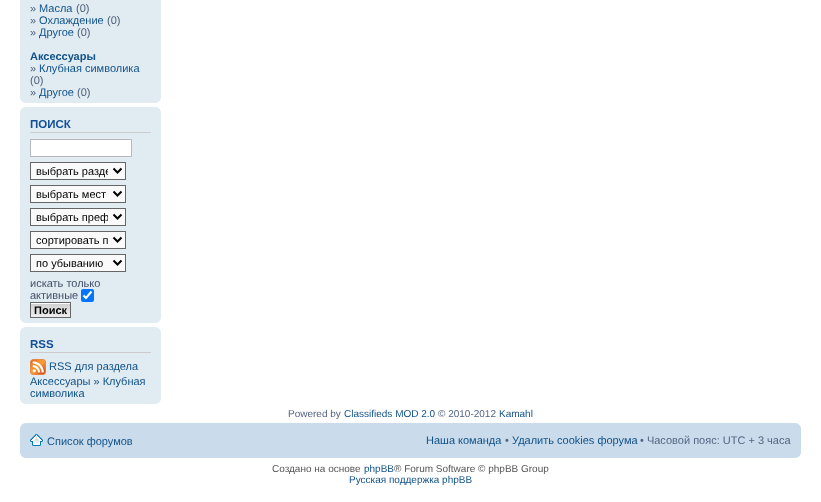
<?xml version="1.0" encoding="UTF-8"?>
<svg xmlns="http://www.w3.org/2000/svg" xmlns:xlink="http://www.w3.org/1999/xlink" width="821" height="502">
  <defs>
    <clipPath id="clip1"><rect x="36" y="164" width="72" height="14" /></clipPath>
    <clipPath id="clip2"><rect x="36" y="210" width="72" height="14" /></clipPath>
  </defs>
  <rect width="100%" height="100%" fill="#ffffff" />
  <rect x="20" width="141" height="103" fill="#e1ebf2" />
  <image x="20" y="98" width="5" height="5" xlink:href="image1.png" />
  <image x="156" y="98" width="5" height="5" xlink:href="image2.png" />
  <rect x="20" y="107" width="141" height="216" fill="#e1ebf2" />
  <image x="20" y="107" width="5" height="5" xlink:href="image3.png" />
  <image x="156" y="107" width="5" height="5" xlink:href="image4.png" />
  <rect x="30" y="132" width="121" height="1" fill="#cccccc" />
  <rect x="30.5" y="139.5" width="101" height="17" fill="#ffffff" stroke="#b4bac0" />
  <rect x="30.5" y="162.5" width="95" height="17" fill="#fafafa" stroke="#666666" />
  <path d="M 113.5 168.5 l 4 4 l 4 -4" fill="none" stroke="#000000" stroke-width="2" />
  <rect x="30.5" y="185.5" width="95" height="17" fill="#fafafa" stroke="#666666" />
  <path d="M 113.5 191.5 l 4 4 l 4 -4" fill="none" stroke="#000000" stroke-width="2" />
  <rect x="30.5" y="208.5" width="95" height="17" fill="#fafafa" stroke="#666666" />
  <path d="M 113.5 214.5 l 4 4 l 4 -4" fill="none" stroke="#000000" stroke-width="2" />
  <rect x="30.5" y="231.5" width="95" height="17" fill="#fafafa" stroke="#666666" />
  <path d="M 113.5 237.5 l 4 4 l 4 -4" fill="none" stroke="#000000" stroke-width="2" />
  <rect x="30.5" y="254.5" width="95" height="17" fill="#fafafa" stroke="#666666" />
  <path d="M 113.5 260.5 l 4 4 l 4 -4" fill="none" stroke="#000000" stroke-width="2" />
  <rect x="81" y="289" width="13" height="13" rx="2" fill="#0075ff" />
  <path d="M 83.5 295.5 l 2.5 2.5 l 5.5 -6.5" fill="none" stroke="#ffffff" stroke-width="2.1" />
  <image x="31" y="303" width="39" height="14" xlink:href="image5.png" />
  <rect x="30.5" y="302.5" width="40" height="15" fill="none" stroke="#666666" />
  <image x="20" y="318" width="5" height="5" xlink:href="image1.png" />
  <image x="156" y="318" width="5" height="5" xlink:href="image2.png" />
  <rect x="20" y="327" width="141" height="77" fill="#e1ebf2" />
  <image x="20" y="327" width="5" height="5" xlink:href="image3.png" />
  <image x="156" y="327" width="5" height="5" xlink:href="image4.png" />
  <rect x="30" y="352" width="121" height="1" fill="#cccccc" />
  <image x="30" y="359" width="16" height="16" xlink:href="image6.png" />
  <image x="20" y="399" width="5" height="5" xlink:href="image1.png" />
  <image x="156" y="399" width="5" height="5" xlink:href="image2.png" />
  <rect x="20" y="423" width="781" height="35" fill="#cadceb" />
  <image x="20" y="423" width="5" height="5" xlink:href="image7.png" />
  <image x="796" y="423" width="5" height="5" xlink:href="image8.png" />
  <image x="30" y="434" width="13" height="12" xlink:href="image9.png" />
  <image x="20" y="453" width="5" height="5" xlink:href="image10.png" />
  <image x="796" y="453" width="5" height="5" xlink:href="image11.png" />
  <text x="30" y="12" style="font-family: Liberation Sans; font-size: 11px; fill: #4c5d77">»</text>
  <text x="39" y="12" style="font-family: Liberation Sans; font-size: 11px; fill: #105289">Масла</text>
  <text x="76" y="12" style="font-family: Liberation Sans; font-size: 11px; fill: #4c5d77">(0)</text>
  <text x="30" y="24" style="font-family: Liberation Sans; font-size: 11px; fill: #4c5d77">»</text>
  <text x="39" y="24" style="font-family: Liberation Sans; font-size: 11px; fill: #105289">Охлаждение</text>
  <text x="107" y="24" style="font-family: Liberation Sans; font-size: 11px; fill: #4c5d77">(0)</text>
  <text x="30" y="36" style="font-family: Liberation Sans; font-size: 11px; fill: #4c5d77">»</text>
  <text x="39" y="36" style="font-family: Liberation Sans; font-size: 11px; fill: #105289">Другое</text>
  <text x="77" y="36" style="font-family: Liberation Sans; font-size: 11px; fill: #4c5d77">(0)</text>
  <text x="30" y="60" style="font-family: Liberation Sans; font-size: 11px; font-weight: bold; fill: #105289">Аксессуары</text>
  <text x="30" y="72" style="font-family: Liberation Sans; font-size: 11px; fill: #4c5d77">»</text>
  <text x="39" y="72" style="font-family: Liberation Sans; font-size: 11px; fill: #105289">Клубная символика</text>
  <text x="30" y="84" style="font-family: Liberation Sans; font-size: 11px; fill: #4c5d77">(0)</text>
  <text x="30" y="96" style="font-family: Liberation Sans; font-size: 11px; fill: #4c5d77">»</text>
  <text x="39" y="96" style="font-family: Liberation Sans; font-size: 11px; fill: #105289">Другое</text>
  <text x="77" y="96" style="font-family: Liberation Sans; font-size: 11px; fill: #4c5d77">(0)</text>
  <text x="30" y="128" style="font-family: Liberation Sans; font-size: 11.5px; font-weight: bold; fill: #115098">ПОИСК</text>
  <g clip-path="url(#clip1)">
    <text x="36" y="175" style="font-family: Liberation Sans; font-size: 11px; fill: #000000">выбрать разде</text>
  </g>
  <text x="36" y="198" style="font-family: Liberation Sans; font-size: 11px; fill: #000000">выбрать мест</text>
  <g clip-path="url(#clip2)">
    <text x="36" y="221" style="font-family: Liberation Sans; font-size: 11px; fill: #000000">выбрать преф</text>
  </g>
  <text x="36" y="244" style="font-family: Liberation Sans; font-size: 11px; fill: #000000">сортировать п</text>
  <text x="36" y="267" style="font-family: Liberation Sans; font-size: 11px; fill: #000000">по убыванию</text>
  <text x="30" y="287" style="font-family: Liberation Sans; font-size: 11px; fill: #425067">искать только</text>
  <text x="30" y="299" style="font-family: Liberation Sans; font-size: 11px; fill: #425067">активные</text>
  <text x="34" y="314" style="font-family: Liberation Sans; font-size: 11px; font-weight: bold; fill: #000000">Поиск</text>
  <text x="30" y="348" style="font-family: Liberation Sans; font-size: 11.5px; font-weight: bold; fill: #115098">RSS</text>
  <text x="49" y="370" style="font-family: Liberation Sans; font-size: 11px; fill: #105289">RSS для раздела</text>
  <text x="30" y="385" style="font-family: Liberation Sans; font-size: 11px; fill: #105289">Аксессуары » Клубная</text>
  <text x="30" y="397" style="font-family: Liberation Sans; font-size: 11px; fill: #105289">символика</text>
  <text x="288" y="417" style="font-family: Liberation Sans; font-size: 10px; fill: #536482">Powered by</text>
  <text x="344" y="417" style="font-family: Liberation Sans; font-size: 10px; fill: #105289">Classifieds MOD 2.0</text>
  <text x="438" y="417" style="font-family: Liberation Sans; font-size: 10px; fill: #536482">© 2010-2012</text>
  <text x="499" y="417" style="font-family: Liberation Sans; font-size: 10px; fill: #105289">Kamahl</text>
  <text x="47" y="445" style="font-family: Liberation Sans; font-size: 11px; fill: #105289">Список форумов</text>
  <text x="426" y="444" style="font-family: Liberation Sans; font-size: 11px; fill: #105289">Наша команда</text>
  <text x="505" y="444" style="font-family: Liberation Sans; font-size: 11px; fill: #536482">•</text>
  <text x="512" y="444" style="font-family: Liberation Sans; font-size: 11px; fill: #105289">Удалить cookies форума</text>
  <text x="640" y="444" style="font-family: Liberation Sans; font-size: 11px; fill: #536482">• Часовой пояс: UTC + 3 часа</text>
  <text x="272" y="472" style="font-family: Liberation Sans; font-size: 10px; fill: #555555">Создано на основе</text>
  <text x="364" y="472" style="font-family: Liberation Sans; font-size: 10px; fill: #105289">phpBB</text>
  <text x="394" y="472" style="font-family: Liberation Sans; font-size: 10px; fill: #555555">® Forum Software © phpBB Group</text>
  <text x="349" y="483" style="font-family: Liberation Sans; font-size: 10px; fill: #105289">Русская поддержка phpBB</text>
</svg>
